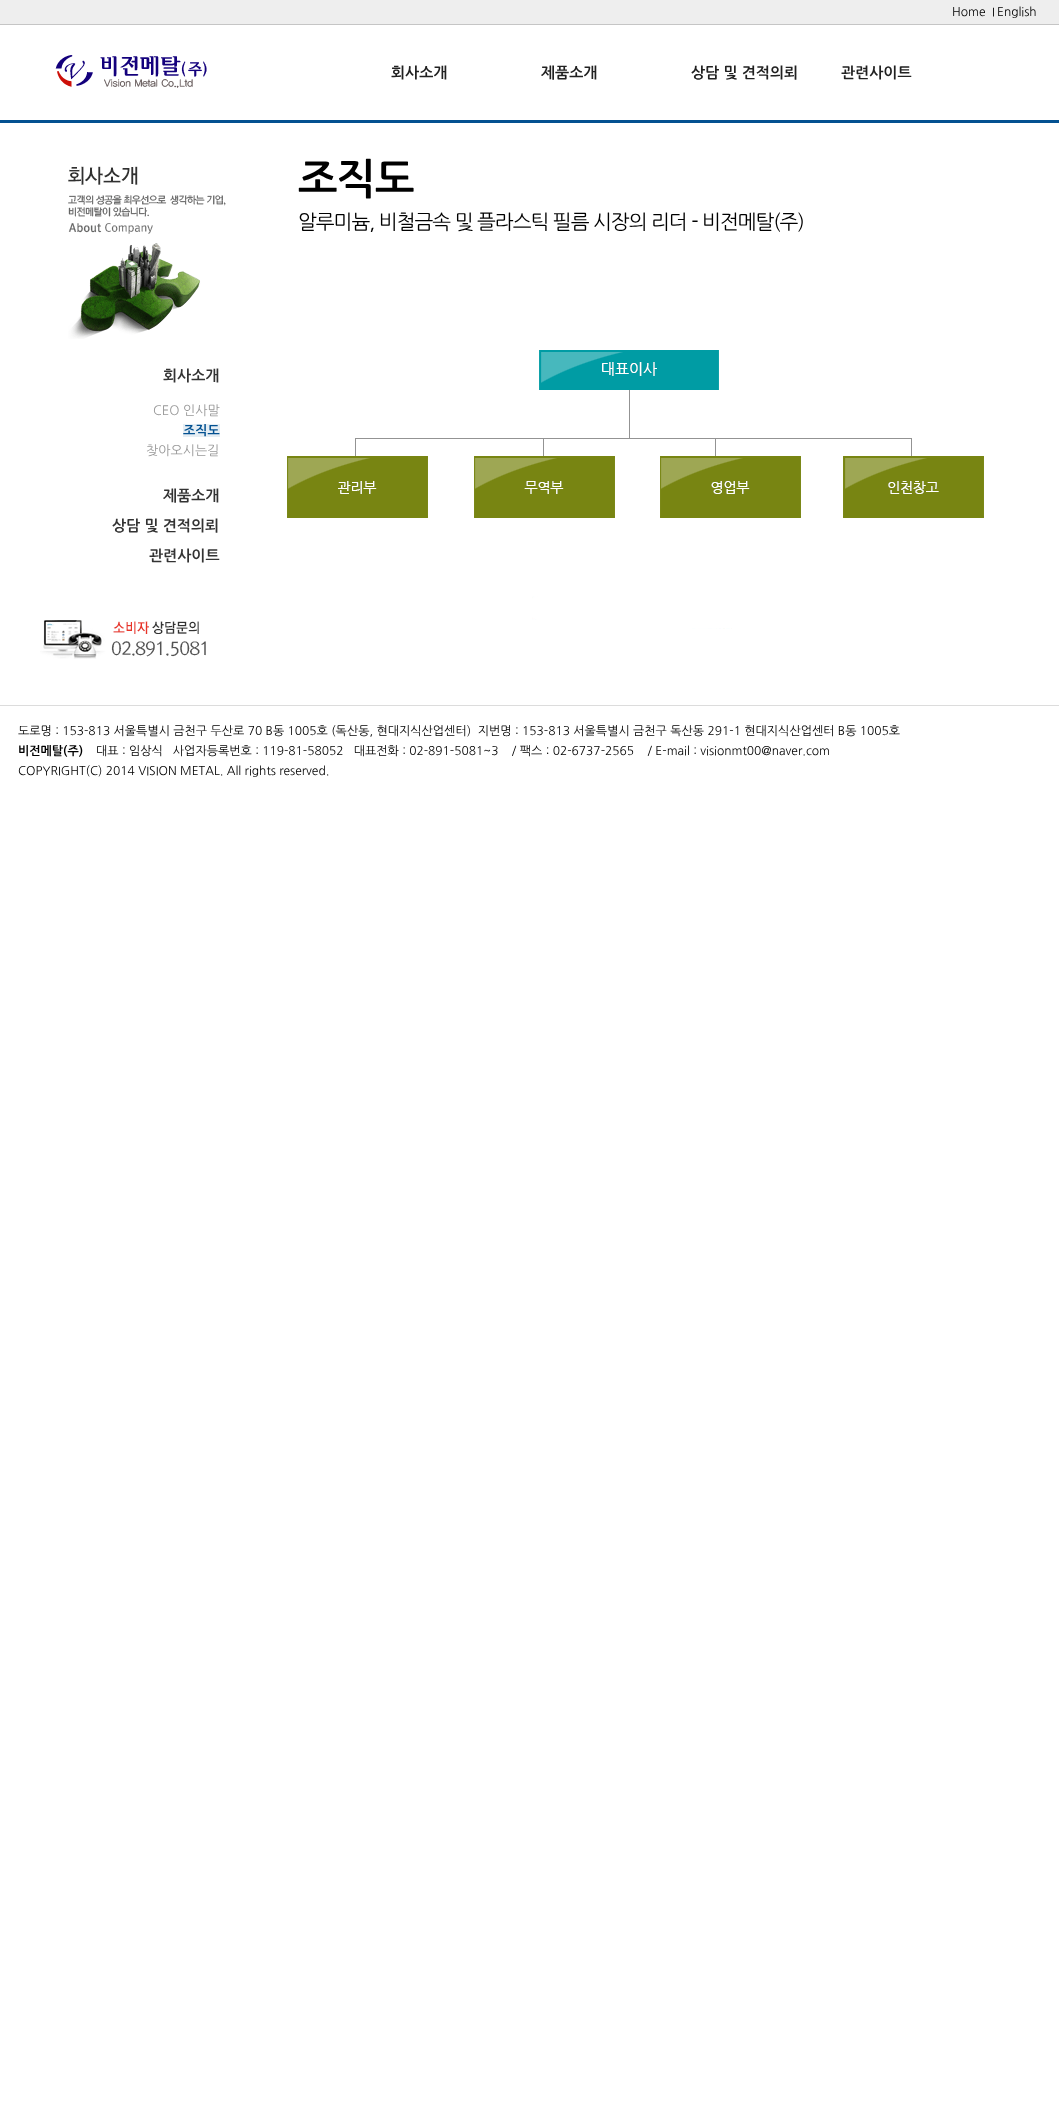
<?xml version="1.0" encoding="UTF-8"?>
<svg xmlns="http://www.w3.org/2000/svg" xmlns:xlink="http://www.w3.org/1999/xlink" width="1059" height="2102">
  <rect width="100%" height="100%" fill="#ffffff" />
  <image x="0" y="0" width="1059" height="123" xlink:href="image1.png" />
  <image x="55" y="55" width="152" height="33" xlink:href="image2.png" />
  <image x="287" y="350" width="697" height="279" xlink:href="image3.png" />
  <image x="68" y="166" width="158" height="173" xlink:href="image4.png" />
  <rect x="183" y="424" width="37" height="13" fill="#e6eef4" />
  <image x="40" y="620" width="166" height="39" xlink:href="image5.png" />
  <rect y="705" width="1059" height="1" fill="#dcdcdc" />
  <text x="952" y="16" style="font-family: NanumGothic; font-size: 12px; fill: #000000">Home</text>
  <text x="992" y="16" style="font-family: NanumGothic; font-size: 12px; fill: #000000">I</text>
  <text x="997" y="16" style="font-family: NanumGothic; font-size: 12px; fill: #000000">English</text>
  <text x="391" y="78" style="font-family: NanumGothic; font-size: 15px; font-weight: bold; fill: #212121">회사소개</text>
  <text x="541" y="78" style="font-family: NanumGothic; font-size: 15px; font-weight: bold; fill: #212121">제품소개</text>
  <text x="691" y="78" style="font-family: NanumGothic; font-size: 15px; font-weight: bold; fill: #212121">상담 및 견적의뢰</text>
  <text x="841" y="78" style="font-family: NanumGothic; font-size: 15px; font-weight: bold; fill: #212121">관련사이트</text>
  <text x="298" y="194" style="font-family: NanumGothic; font-size: 42px; font-weight: bold; letter-spacing: -1px; fill: #000000">조직도</text>
  <text x="298" y="229" style="font-family: NanumGothic; font-size: 20px; letter-spacing: -1px; fill: #000000">알루미늄, 비철금속 및 플라스틱 필름 시장의 리더 - 비전메탈(주)</text>
  <text x="163" y="381" style="font-family: NanumGothic; font-size: 15px; font-weight: bold; fill: #333333">회사소개</text>
  <text x="153" y="415" style="font-family: NanumGothic; font-size: 13px; fill: #999999">CEO 인사말</text>
  <text x="183" y="435" style="font-family: NanumGothic; font-size: 13px; font-weight: bold; fill: #035191">조직도</text>
  <text x="146" y="455" style="font-family: NanumGothic; font-size: 13px; fill: #999999">찾아오시는길</text>
  <text x="163" y="501" style="font-family: NanumGothic; font-size: 15px; font-weight: bold; fill: #333333">제품소개</text>
  <text x="112" y="531" style="font-family: NanumGothic; font-size: 15px; font-weight: bold; fill: #333333">상담 및 견적의뢰</text>
  <text x="149" y="561" style="font-family: NanumGothic; font-size: 15px; font-weight: bold; fill: #333333">관련사이트</text>
  <text x="18" y="735" style="font-family: NanumGothic; font-size: 12px; fill: #000000" xml:space="preserve">도로명 : 153-813 서울특별시 금천구 두산로 70 B동 1005호 (독산동, 현대지식산업센터)  지번명 : 153-813 서울특별시 금천구 독산동 291-1 현대지식산업센터 B동 1005호</text>
  <text x="18" y="755" style="font-family: NanumGothic; font-size: 12px; font-weight: bold; fill: #000000">비전메탈(주)</text>
  <text x="96" y="755" style="font-family: NanumGothic; font-size: 12px; fill: #000000" xml:space="preserve">대표 : 임상식   사업자등록번호 : 119-81-58052   대표전화 : 02-891-5081~3    / 팩스 : 02-6737-2565    / E-mail : visionmt00@naver.com</text>
  <text x="18" y="775" style="font-family: NanumGothic; font-size: 12px; fill: #000000">COPYRIGHT(C) 2014 VISION METAL. All rights reserved.</text>
</svg>
